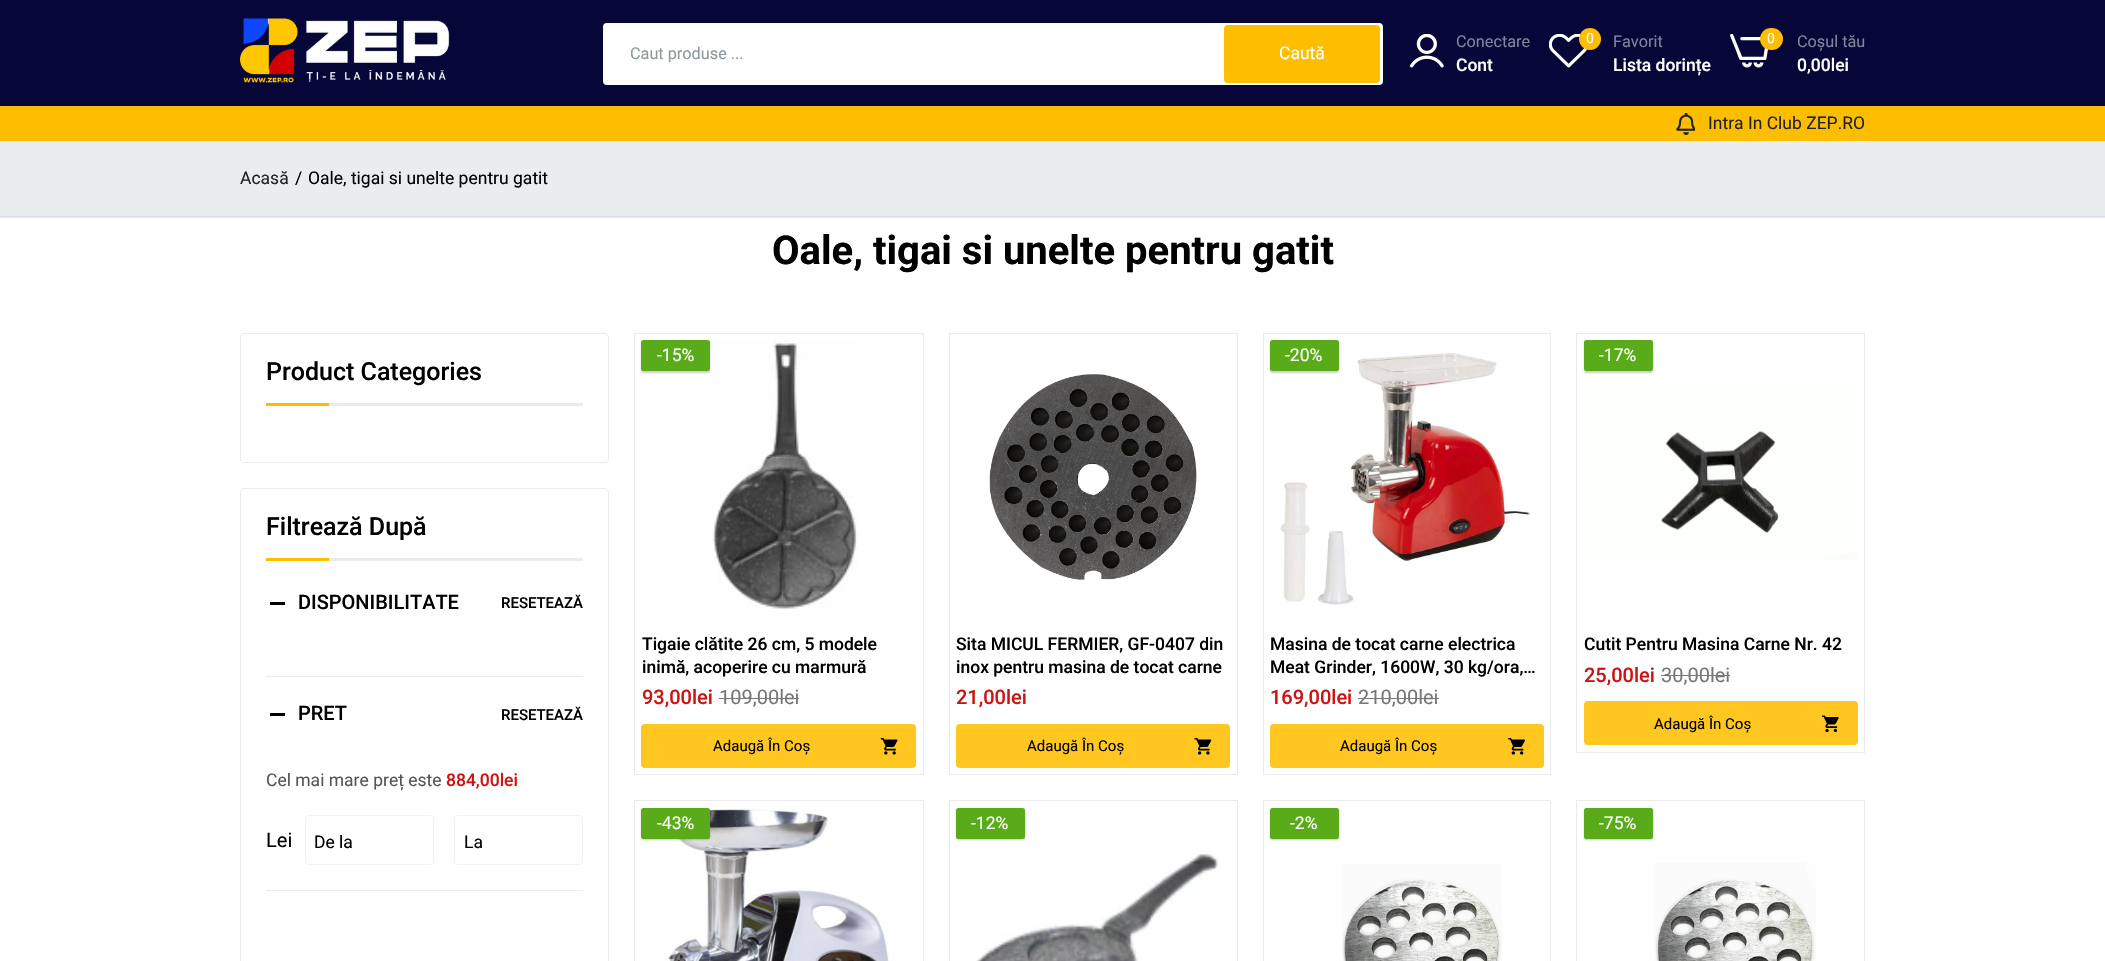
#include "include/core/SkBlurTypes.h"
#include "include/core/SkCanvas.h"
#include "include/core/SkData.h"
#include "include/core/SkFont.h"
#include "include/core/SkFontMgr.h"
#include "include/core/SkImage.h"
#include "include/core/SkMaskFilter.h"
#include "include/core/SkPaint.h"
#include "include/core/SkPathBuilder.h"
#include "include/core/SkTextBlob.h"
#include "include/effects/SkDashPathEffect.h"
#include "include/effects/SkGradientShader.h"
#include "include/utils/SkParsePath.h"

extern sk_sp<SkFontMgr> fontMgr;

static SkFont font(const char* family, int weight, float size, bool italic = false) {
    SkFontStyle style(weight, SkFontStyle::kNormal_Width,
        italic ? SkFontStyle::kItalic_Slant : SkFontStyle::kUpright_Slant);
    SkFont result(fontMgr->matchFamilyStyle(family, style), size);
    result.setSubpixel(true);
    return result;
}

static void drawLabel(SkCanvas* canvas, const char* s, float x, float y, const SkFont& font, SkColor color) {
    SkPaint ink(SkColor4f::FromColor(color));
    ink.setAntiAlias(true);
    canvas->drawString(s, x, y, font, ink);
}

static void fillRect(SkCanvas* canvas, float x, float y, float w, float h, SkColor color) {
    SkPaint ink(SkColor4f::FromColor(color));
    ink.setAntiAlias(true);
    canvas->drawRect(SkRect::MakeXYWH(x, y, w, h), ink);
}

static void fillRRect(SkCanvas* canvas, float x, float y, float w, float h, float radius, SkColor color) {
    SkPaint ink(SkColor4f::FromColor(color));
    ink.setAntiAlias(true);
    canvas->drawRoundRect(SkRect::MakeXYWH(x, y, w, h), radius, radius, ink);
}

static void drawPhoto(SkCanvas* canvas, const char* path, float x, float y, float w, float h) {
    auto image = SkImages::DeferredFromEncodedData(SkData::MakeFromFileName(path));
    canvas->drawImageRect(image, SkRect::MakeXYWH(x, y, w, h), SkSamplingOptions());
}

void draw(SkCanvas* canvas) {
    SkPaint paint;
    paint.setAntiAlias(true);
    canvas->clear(0xFFFFFFFF);
    fillRect(canvas, 0, 0, 2105, 106, 0xFF060738);
    drawPhoto(canvas, "assets/img1.png", 240, 18, 210, 65);
    paint.setColor(0xFFFFFFFF);
    canvas->drawRoundRect(SkRect::MakeXYWH(604.5f, 24.5f, 777, 59), 2.5f, 2.5f, paint);
    paint.setStroke(true);
    paint.setStrokeWidth(3);
    canvas->drawRoundRect(SkRect::MakeXYWH(604.5f, 24.5f, 777, 59), 2.5f, 2.5f, paint);
    SkFont font1 = font("Roboto", 400, 16.25f);
    drawLabel(canvas, "Caut produse ...", 630, 59, font1, 0xFF8D979E);
    fillRRect(canvas, 1224, 25, 156, 58, 4, 0xFFFDBE01);
    SkFont font2 = font("Roboto", 400, 17.5f);
    drawLabel(canvas, "Caută", 1279, 59, font2, 0xFFFFFFFF);
    drawPhoto(canvas, "assets/img2.png", 1410, 34, 34, 34);
    drawLabel(canvas, "Conectare", 1456, 47, font1, 0xFF83839C);
    SkFont font3 = font("Roboto", 500, 17.5f);
    drawLabel(canvas, "Cont", 1456, 71, font3, 0xFFFFFFFF);
    drawPhoto(canvas, "assets/img3.png", 1549, 34, 39, 34);
    paint.setStroke(false);
    paint.setColor(0xFFFDBE01);
    canvas->drawCircle(1590, 39, 11, paint);
    SkFont font4 = font("Roboto", 400, 14);
    drawLabel(canvas, "0", 1586, 43, font4, 0xFFFFFFFF);
    drawLabel(canvas, "Favorit", 1613, 47, font1, 0xFF83839C);
    drawLabel(canvas, "Lista dorințe", 1613, 71, font3, 0xFFFFFFFF);
    drawPhoto(canvas, "assets/img4.png", 1730, 34, 38, 34);
    fillRRect(canvas, 1760, 28, 23, 22, 11, 0xFFFDBE01);
    drawLabel(canvas, "0", 1767, 43, font4, 0xFFFFFFFF);
    drawLabel(canvas, "Coșul tău", 1797, 47, font1, 0xFF83839C);
    drawLabel(canvas, "0,00lei", 1797, 71, font3, 0xFFFFFFFF);
    fillRect(canvas, 0, 106, 2105, 35, 0xFFFDBE01);
    drawPhoto(canvas, "assets/img5.png", 1676, 113, 19, 22);
    drawLabel(canvas, "Intra In Club ZEP.RO", 1708, 129, font2, 0xFF222222);
    fillRect(canvas, 0, 141, 2105, 77, 0xFFEAEDEE);
    fillRect(canvas, 0, 216, 2105, 1, 0xFFD9DFEC);
    drawLabel(canvas, "Acasă", 240, 184, font2, 0xFF222222);
    drawLabel(canvas, "/", 295, 184, font2, 0xFF000000);
    drawLabel(canvas, "Oale, tigai si unelte pentru gatit", 308, 184, font2, 0xFF000000);
    SkFont font5 = font("Roboto", 700, 40);
    drawLabel(canvas, "Oale, tigai si unelte pentru gatit", 772, 264, font5, 0xFF000000);
    paint.setStroke(true);
    paint.setStrokeWidth(1);
    paint.setColor(0xFFEBEBEB);
    canvas->drawRoundRect(SkRect::MakeXYWH(240.5f, 333.5f, 368, 129), 3.5f, 3.5f, paint);
    fillRect(canvas, 329, 403, 254, 3, 0xFFEBEBEB);
    SkFont font6 = font("Roboto", 500, 25);
    drawLabel(canvas, "Product Categories", 266, 380, font6, 0xFF000000);
    fillRect(canvas, 266, 403, 63, 3, 0xFFFDBE01);
    canvas->drawRoundRect(SkRect::MakeXYWH(240.5f, 488.5f, 368, 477), 3.5f, 3.5f, paint);
    fillRect(canvas, 329, 558, 254, 3, 0xFFEBEBEB);
    drawLabel(canvas, "Filtrează După", 266, 535, font6, 0xFF000000);
    fillRect(canvas, 266, 558, 63, 3, 0xFFFDBE01);
    fillRect(canvas, 266, 676, 317, 1, 0xFFEBEBEB);
    fillRect(canvas, 270, 602, 15, 3, 0xFF000000);
    SkFont font7 = font("Roboto", 500, 20);
    drawLabel(canvas, "DISPONIBILITATE", 298, 609, font7, 0xFF000000);
    SkFont font8 = font("Roboto", 500, 15);
    drawLabel(canvas, "RESETEAZĂ", 501, 608, font8, 0xFF000000);
    fillRect(canvas, 266, 890, 317, 1, 0xFFEBEBEB);
    fillRect(canvas, 270, 713, 15, 3, 0xFF000000);
    drawLabel(canvas, "PRET", 298, 720, font7, 0xFF000000);
    drawLabel(canvas, "RESETEAZĂ", 501, 720, font8, 0xFF000000);
    drawLabel(canvas, "Cel mai mare preț este", 266, 786, font2, 0xFF555555);
    drawLabel(canvas, "884,00lei", 446, 786, font3, 0xFFCC1414);
    SkFont font9 = font("Roboto", 400, 20);
    drawLabel(canvas, "Lei", 266, 847, font9, 0xFF000000);
    paint.setColor(0xFFF2F2F6);
    canvas->drawRoundRect(SkRect::MakeXYWH(305.5f, 815.5f, 128, 49), 3.5f, 3.5f, paint);
    drawLabel(canvas, "De la", 314, 848, font2, 0xFF000000);
    canvas->drawRoundRect(SkRect::MakeXYWH(454.5f, 815.5f, 128, 49), 3.5f, 3.5f, paint);
    drawLabel(canvas, "La", 464, 848, font2, 0xFF000000);
    paint.setColor(0xFFEBEBEB);
    canvas->drawRect(SkRect::MakeXYWH(634.5f, 333.5f, 289, 441), paint);
    drawPhoto(canvas, "assets/img6.png", 712, 340, 147, 269);
    paint.setStroke(false);
    paint.setColor(0x33000000);
    paint.setMaskFilter(SkMaskFilter::MakeBlur(kNormal_SkBlurStyle, 1));
    canvas->drawRoundRect(SkRect::MakeXYWH(641, 341, 69, 32), 2.5f, 2.5f, paint);
    paint.setMaskFilter(nullptr);
    fillRRect(canvas, 641, 340, 69, 31, 2.5f, 0xFF5AAB19);
    drawLabel(canvas, "-15%", 657, 361, font2, 0xFFFFFFFF);
    drawLabel(canvas, "Tigaie clătite 26 cm, 5 modele", 642, 650, font3, 0xFF000000);
    drawLabel(canvas, "inimă, acoperire cu marmură", 642, 673, font3, 0xFF000000);
    drawLabel(canvas, "93,00lei", 642, 704, font7, 0xFFCC1414);
    drawLabel(canvas, "109,00lei", 719, 704, font9, 0xFF777777);
    fillRect(canvas, 719, 698, 80, 1, 0xFF777777);
    fillRRect(canvas, 641, 724, 275, 44, 4, 0xFFFFC71F);
    SkFont font10 = font("Roboto", 400, 15);
    drawLabel(canvas, "Adaugă În Coș", 713, 751, font10, 0xFF000000);
    drawPhoto(canvas, "assets/img7.png", 880, 738, 18, 17);
    paint.setStroke(true);
    paint.setColor(0xFFEBEBEB);
    canvas->drawRect(SkRect::MakeXYWH(949.5f, 333.5f, 288, 441), paint);
    drawPhoto(canvas, "assets/img8.png", 989, 374, 208, 206);
    drawLabel(canvas, "Sita MICUL FERMIER, GF-0407 din", 956, 650, font3, 0xFF000000);
    drawLabel(canvas, "inox pentru masina de tocat carne", 956, 673, font3, 0xFF000000);
    drawLabel(canvas, "21,00lei", 956, 704, font7, 0xFFCC1414);
    fillRRect(canvas, 956, 724, 274, 44, 4, 0xFFFFC71F);
    drawLabel(canvas, "Adaugă În Coș", 1027, 751, font10, 0xFF000000);
    drawPhoto(canvas, "assets/img9.png", 1194, 738, 18, 17);
    canvas->drawRect(SkRect::MakeXYWH(1263.5f, 333.5f, 287, 441), paint);
    drawPhoto(canvas, "assets/img10.png", 1280, 353, 250, 252);
    paint.setStroke(false);
    paint.setColor(0x33000000);
    paint.setMaskFilter(SkMaskFilter::MakeBlur(kNormal_SkBlurStyle, 1));
    canvas->drawRoundRect(SkRect::MakeXYWH(1270, 341, 69, 32), 2.5f, 2.5f, paint);
    paint.setMaskFilter(nullptr);
    fillRRect(canvas, 1270, 340, 69, 31, 2.5f, 0xFF5AAB19);
    drawLabel(canvas, "-20%", 1285, 361, font2, 0xFFFFFFFF);
    drawLabel(canvas, "Masina de tocat carne electrica", 1270, 650, font3, 0xFF000000);
    drawLabel(canvas, "Meat Grinder, 1600W, 30 kg/ora,…", 1270, 673, font3, 0xFF000000);
    drawLabel(canvas, "169,00lei", 1270, 704, font7, 0xFFCC1414);
    drawLabel(canvas, "210,00lei", 1358, 704, font9, 0xFF777777);
    fillRect(canvas, 1358, 698, 81, 1, 0xFF777777);
    fillRRect(canvas, 1270, 724, 274, 44, 4, 0xFFFFC71F);
    drawLabel(canvas, "Adaugă În Coș", 1340, 751, font10, 0xFF000000);
    drawPhoto(canvas, "assets/img11.png", 1508, 738, 17, 17);
    paint.setStroke(true);
    paint.setColor(0xFFEBEBEB);
    canvas->drawRect(SkRect::MakeXYWH(1576.5f, 333.5f, 288, 419), paint);
    paint.setStroke(false);
    paint.setColor(0x33000000);
    paint.setMaskFilter(SkMaskFilter::MakeBlur(kNormal_SkBlurStyle, 1));
    canvas->drawRoundRect(SkRect::MakeXYWH(1584, 341, 69, 32), 2.5f, 2.5f, paint);
    paint.setMaskFilter(nullptr);
    fillRRect(canvas, 1584, 340, 69, 31, 2.5f, 0xFF5AAB19);
    drawLabel(canvas, "-17%", 1599, 361, font2, 0xFFFFFFFF);
    drawPhoto(canvas, "assets/img12.png", 1584, 387, 273, 181);
    drawLabel(canvas, "Cutit Pentru Masina Carne Nr. 42", 1584, 650, font3, 0xFF000000);
    drawLabel(canvas, "25,00lei", 1584, 682, font7, 0xFFCC1414);
    drawLabel(canvas, "30,00lei", 1661, 682, font9, 0xFF777777);
    fillRect(canvas, 1661, 675, 69, 1, 0xFF777777);
    fillRRect(canvas, 1584, 701, 274, 44, 4, 0xFFFFC71F);
    drawLabel(canvas, "Adaugă În Coș", 1654, 729, font10, 0xFF000000);
    drawPhoto(canvas, "assets/img13.png", 1822, 715, 17, 17);
    paint.setStroke(true);
    paint.setColor(0xFFEBEBEB);
    canvas->drawRect(SkRect::MakeXYWH(634.5f, 800.5f, 289, 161), paint);
    drawPhoto(canvas, "assets/img14.png", 668, 808, 222, 153);
    paint.setStroke(false);
    paint.setColor(0x33000000);
    paint.setMaskFilter(SkMaskFilter::MakeBlur(kNormal_SkBlurStyle, 1));
    canvas->drawRoundRect(SkRect::MakeXYWH(641, 809, 69, 31), 2.5f, 2.5f, paint);
    paint.setMaskFilter(nullptr);
    fillRRect(canvas, 641, 808, 69, 31, 2.5f, 0xFF5AAB19);
    drawLabel(canvas, "-43%", 657, 829, font2, 0xFFFFFFFF);
    paint.setStroke(true);
    paint.setColor(0xFFEBEBEB);
    canvas->drawRect(SkRect::MakeXYWH(949.5f, 800.5f, 288, 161), paint);
    paint.setStroke(false);
    paint.setColor(0x33000000);
    paint.setMaskFilter(SkMaskFilter::MakeBlur(kNormal_SkBlurStyle, 1));
    canvas->drawRoundRect(SkRect::MakeXYWH(956, 809, 69, 31), 2.5f, 2.5f, paint);
    paint.setMaskFilter(nullptr);
    fillRRect(canvas, 956, 808, 69, 31, 2.5f, 0xFF5AAB19);
    drawLabel(canvas, "-12%", 971, 829, font2, 0xFFFFFFFF);
    drawPhoto(canvas, "assets/img15.png", 976, 853, 243, 108);
    paint.setStroke(true);
    paint.setColor(0xFFEBEBEB);
    canvas->drawRect(SkRect::MakeXYWH(1263.5f, 800.5f, 287, 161), paint);
    paint.setStroke(false);
    paint.setColor(0x33000000);
    paint.setMaskFilter(SkMaskFilter::MakeBlur(kNormal_SkBlurStyle, 1));
    canvas->drawRoundRect(SkRect::MakeXYWH(1270, 809, 69, 31), 2.5f, 2.5f, paint);
    paint.setMaskFilter(nullptr);
    fillRRect(canvas, 1270, 808, 69, 31, 2.5f, 0xFF5AAB19);
    drawLabel(canvas, "-2%", 1290, 829, font2, 0xFFFFFFFF);
    drawPhoto(canvas, "assets/img16.png", 1342, 864, 160, 97);
    paint.setStroke(true);
    paint.setColor(0xFFEBEBEB);
    canvas->drawRect(SkRect::MakeXYWH(1576.5f, 800.5f, 288, 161), paint);
    paint.setStroke(false);
    paint.setColor(0x33000000);
    paint.setMaskFilter(SkMaskFilter::MakeBlur(kNormal_SkBlurStyle, 1));
    canvas->drawRoundRect(SkRect::MakeXYWH(1584, 809, 69, 31), 2.5f, 2.5f, paint);
    paint.setMaskFilter(nullptr);
    fillRRect(canvas, 1584, 808, 69, 31, 2.5f, 0xFF5AAB19);
    drawLabel(canvas, "-75%", 1599, 829, font2, 0xFFFFFFFF);
    drawPhoto(canvas, "assets/img17.png", 1654, 863, 162, 98);
}
